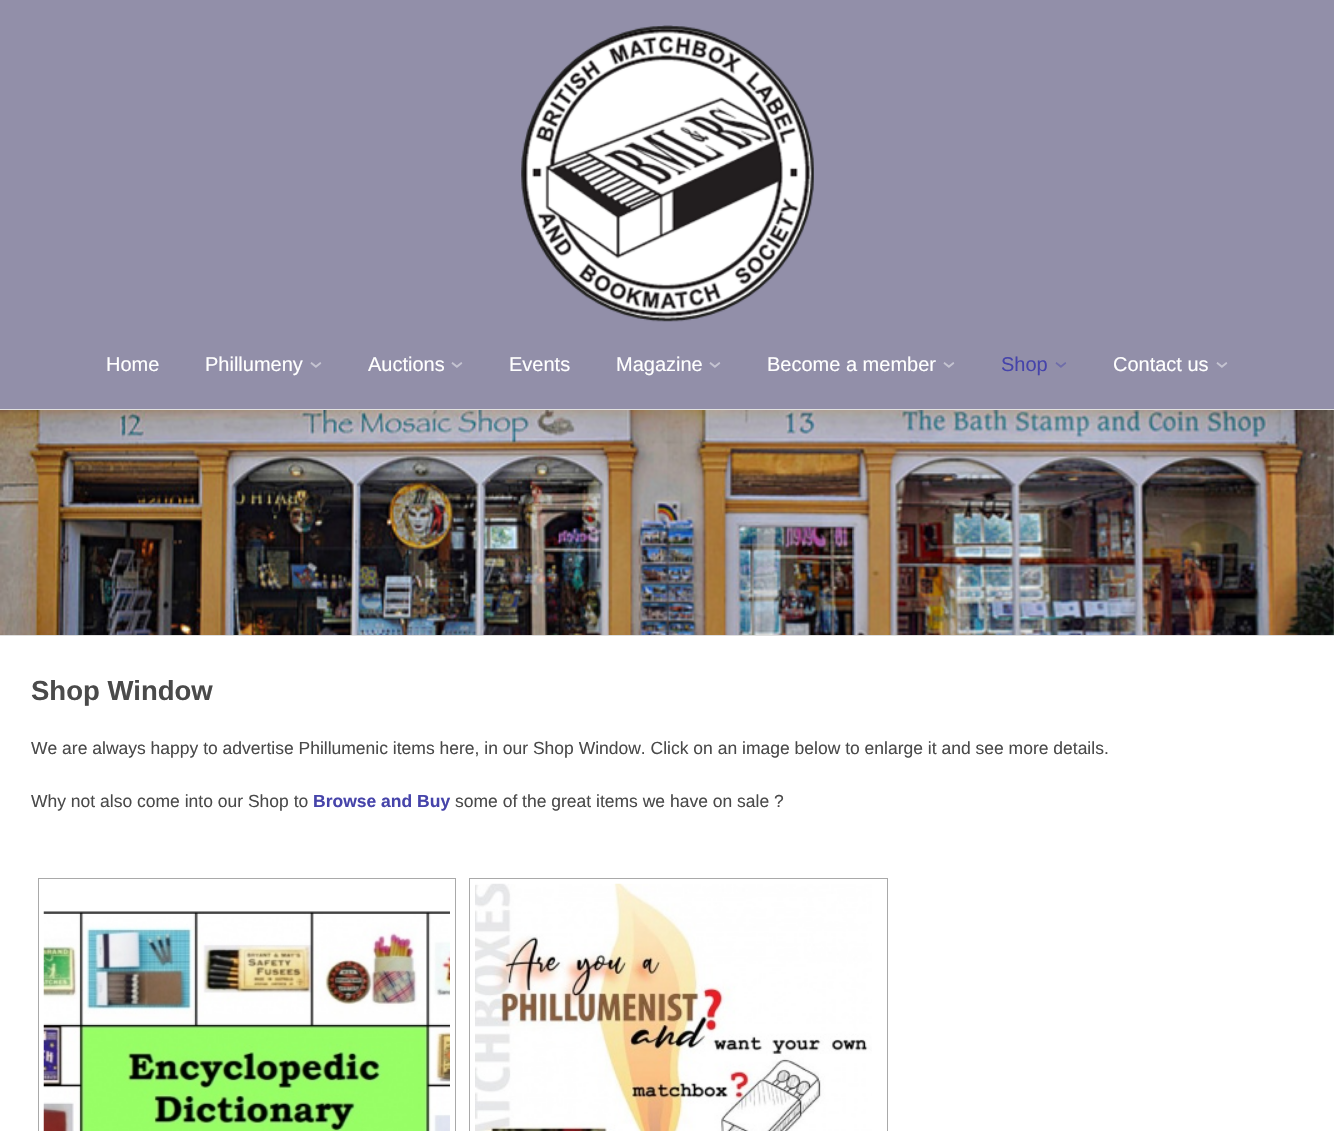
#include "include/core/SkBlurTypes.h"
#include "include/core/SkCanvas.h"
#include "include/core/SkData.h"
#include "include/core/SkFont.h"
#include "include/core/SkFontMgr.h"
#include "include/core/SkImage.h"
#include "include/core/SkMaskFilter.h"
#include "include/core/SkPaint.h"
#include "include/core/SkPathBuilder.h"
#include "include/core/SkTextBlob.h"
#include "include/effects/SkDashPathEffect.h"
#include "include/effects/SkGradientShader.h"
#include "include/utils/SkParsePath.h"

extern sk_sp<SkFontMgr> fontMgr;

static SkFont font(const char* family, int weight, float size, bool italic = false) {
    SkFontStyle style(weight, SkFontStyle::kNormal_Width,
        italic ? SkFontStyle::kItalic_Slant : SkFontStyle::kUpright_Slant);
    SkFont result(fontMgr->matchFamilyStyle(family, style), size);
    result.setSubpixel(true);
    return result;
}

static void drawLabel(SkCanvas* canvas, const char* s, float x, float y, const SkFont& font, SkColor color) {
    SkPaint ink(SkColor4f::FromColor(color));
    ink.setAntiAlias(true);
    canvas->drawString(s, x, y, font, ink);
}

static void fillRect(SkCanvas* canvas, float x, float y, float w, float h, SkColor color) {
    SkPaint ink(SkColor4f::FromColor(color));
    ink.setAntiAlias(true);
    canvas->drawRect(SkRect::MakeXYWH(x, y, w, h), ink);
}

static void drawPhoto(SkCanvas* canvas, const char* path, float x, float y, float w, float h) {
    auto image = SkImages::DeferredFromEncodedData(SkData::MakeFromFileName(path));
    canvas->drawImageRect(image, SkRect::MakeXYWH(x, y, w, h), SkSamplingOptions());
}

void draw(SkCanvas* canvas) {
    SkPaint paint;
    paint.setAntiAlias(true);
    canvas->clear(0xFFFFFFFF);
    fillRect(canvas, 0, 0, 1334, 409, 0xFF928FA9);
    fillRect(canvas, 0, 409, 1334, 1, 0xFFE0E0E0);
    drawPhoto(canvas, "assets/img1.png", 521, 25, 293, 297);
    SkFont font1 = font("Liberation Sans", 400, 20);
    drawLabel(canvas, "Home", 106, 371, font1, 0xFFFFFFFF);
    drawLabel(canvas, "Phillumeny", 205, 371, font1, 0xFFFFFFFF);
    SkFont font2 = font("Open Sans", 400, 26);
    canvas->save();
    canvas->rotate(90, 309, 361);
    drawLabel(canvas, "›", 309, 361, font2, 0xFFC4C3D1);
    canvas->restore();
    drawLabel(canvas, "Auctions", 368, 371, font1, 0xFFFFFFFF);
    canvas->save();
    canvas->rotate(90, 450, 361);
    drawLabel(canvas, "›", 450, 361, font2, 0xFFC4C3D1);
    canvas->restore();
    drawLabel(canvas, "Events", 509, 371, font1, 0xFFFFFFFF);
    drawLabel(canvas, "Magazine", 616, 371, font1, 0xFFFFFFFF);
    canvas->save();
    canvas->rotate(90, 708, 361);
    drawLabel(canvas, "›", 708, 361, font2, 0xFFC4C3D1);
    canvas->restore();
    drawLabel(canvas, "Become a member", 767, 371, font1, 0xFFFFFFFF);
    canvas->save();
    canvas->rotate(90, 942, 361);
    drawLabel(canvas, "›", 942, 361, font2, 0xFFC4C3D1);
    canvas->restore();
    drawLabel(canvas, "Shop", 1001, 371, font1, 0xFF4644AA);
    canvas->save();
    canvas->rotate(90, 1054, 361);
    drawLabel(canvas, "›", 1054, 361, font2, 0xFF6F6DA9);
    canvas->restore();
    drawLabel(canvas, "Contact us", 1113, 371, font1, 0xFFFFFFFF);
    canvas->save();
    canvas->rotate(90, 1215, 361);
    drawLabel(canvas, "›", 1215, 361, font2, 0xFFC4C3D1);
    canvas->restore();
    fillRect(canvas, 0, 635, 1334, 1, 0xFFE0E0E0);
    drawPhoto(canvas, "assets/img2.png", 0, 410, 1334, 225);
    SkFont font3 = font("Liberation Sans", 700, 27.5f);
    drawLabel(canvas, "Shop Window", 31, 700, font3, 0xFF4A4A4A);
    SkFont font4 = font("Liberation Sans", 400, 17.5f);
    drawLabel(canvas, "We are always happy to advertise Phillumenic items here, in our Shop Window. Click on an image below to enlarge it and see more details.", 31, 754, font4, 0xFF4A4A4A);
    drawLabel(canvas, "Why not also come into our Shop to", 31, 807, font4, 0xFF4A4A4A);
    SkFont font5 = font("Liberation Sans", 700, 17.5f);
    drawLabel(canvas, "Browse and Buy", 313, 807, font5, 0xFF4644AA);
    drawLabel(canvas, "some of the great items we have on sale ?", 455, 807, font4, 0xFF4A4A4A);
    paint.setStroke(true);
    paint.setStrokeWidth(1);
    paint.setColor(0xFFA9A9A9);
    canvas->drawRect(SkRect::MakeXYWH(38.5f, 878.5f, 417, 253), paint);
    drawPhoto(canvas, "assets/img3.png", 43, 911, 407, 220);
    canvas->drawRect(SkRect::MakeXYWH(469.5f, 878.5f, 418, 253), paint);
    drawPhoto(canvas, "assets/img4.png", 475, 883, 397, 248);
}
